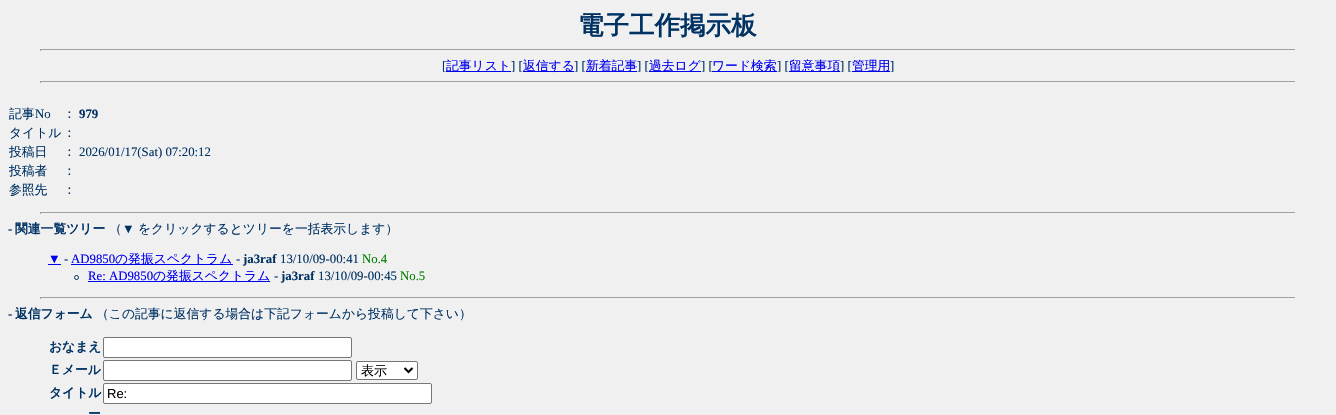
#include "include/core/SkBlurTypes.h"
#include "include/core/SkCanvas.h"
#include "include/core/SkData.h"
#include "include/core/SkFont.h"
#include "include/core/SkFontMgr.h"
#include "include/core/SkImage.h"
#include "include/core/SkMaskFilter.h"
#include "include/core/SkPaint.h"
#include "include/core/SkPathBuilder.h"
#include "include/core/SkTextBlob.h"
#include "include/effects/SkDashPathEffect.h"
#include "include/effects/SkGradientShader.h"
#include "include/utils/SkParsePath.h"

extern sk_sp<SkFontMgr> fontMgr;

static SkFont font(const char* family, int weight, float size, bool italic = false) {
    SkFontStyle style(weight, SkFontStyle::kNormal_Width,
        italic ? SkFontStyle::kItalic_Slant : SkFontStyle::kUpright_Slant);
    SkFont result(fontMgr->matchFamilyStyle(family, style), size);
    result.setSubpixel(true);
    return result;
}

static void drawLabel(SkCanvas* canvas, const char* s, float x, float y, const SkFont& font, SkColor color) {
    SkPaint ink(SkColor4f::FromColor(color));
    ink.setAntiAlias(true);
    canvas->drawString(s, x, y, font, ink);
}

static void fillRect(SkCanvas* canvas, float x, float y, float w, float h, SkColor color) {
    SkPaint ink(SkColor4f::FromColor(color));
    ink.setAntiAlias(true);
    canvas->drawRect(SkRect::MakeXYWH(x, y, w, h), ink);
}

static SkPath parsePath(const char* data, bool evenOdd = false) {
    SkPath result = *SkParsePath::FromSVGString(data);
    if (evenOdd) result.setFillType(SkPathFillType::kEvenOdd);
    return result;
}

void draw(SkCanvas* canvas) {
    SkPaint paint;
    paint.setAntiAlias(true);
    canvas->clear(0xFFF0F0F0);
    SkFont font1 = font("WenQuanYi Zen Hei", 700, 25.5f);
    drawLabel(canvas, "電子工作掲示板", 578, 34, font1, 0xFF003264);
    fillRect(canvas, 40, 49, 1256, 1, 0xFF9F9F9F);
    fillRect(canvas, 1295, 49, 1, 2, 0xFFEEEEEE);
    fillRect(canvas, 40, 49, 1, 2, 0xFF9F9F9F);
    SkFont font2 = font("Liberation Serif", 400, 12.8f);
    drawLabel(canvas, "[", 442, 70, font2, 0xFF003264);
    fillRect(canvas, 446, 71, 65, 1, 0xFF0000EE);
    SkFont font3 = font("WenQuanYi Zen Hei", 500, 12.8f);
    drawLabel(canvas, "記事リスト", 446, 70, font3, 0xFF0000EE);
    drawLabel(canvas, "] [", 511, 70, font2, 0xFF003264);
    fillRect(canvas, 523, 71, 51, 1, 0xFF0000EE);
    drawLabel(canvas, "返信する", 523, 70, font3, 0xFF0000EE);
    drawLabel(canvas, "] [", 574, 70, font2, 0xFF003264);
    fillRect(canvas, 586, 71, 51, 1, 0xFF0000EE);
    drawLabel(canvas, "新着記事", 586, 70, font3, 0xFF0000EE);
    drawLabel(canvas, "] [", 637, 70, font2, 0xFF003264);
    fillRect(canvas, 649, 71, 52, 1, 0xFF0000EE);
    drawLabel(canvas, "過去ログ", 649, 70, font3, 0xFF0000EE);
    drawLabel(canvas, "] [", 701, 70, font2, 0xFF003264);
    fillRect(canvas, 712, 71, 65, 1, 0xFF0000EE);
    drawLabel(canvas, "ワード検索", 712, 70, font3, 0xFF0000EE);
    drawLabel(canvas, "] [", 777, 70, font2, 0xFF003264);
    fillRect(canvas, 789, 71, 51, 1, 0xFF0000EE);
    drawLabel(canvas, "留意事項", 789, 70, font3, 0xFF0000EE);
    drawLabel(canvas, "] [", 840, 70, font2, 0xFF003264);
    fillRect(canvas, 852, 71, 38, 1, 0xFF0000EE);
    drawLabel(canvas, "管理用", 852, 70, font3, 0xFF0000EE);
    drawLabel(canvas, "]", 890, 70, font2, 0xFF003264);
    fillRect(canvas, 40, 81, 1256, 1, 0xFF9F9F9F);
    fillRect(canvas, 1295, 81, 1, 2, 0xFFEEEEEE);
    fillRect(canvas, 40, 81, 1, 2, 0xFF9F9F9F);
    drawLabel(canvas, "記事", 9, 118, font3, 0xFF003264);
    drawLabel(canvas, "No", 35, 118, font2, 0xFF003264);
    drawLabel(canvas, "：", 63, 118, font3, 0xFF003264);
    SkFont font4 = font("Liberation Serif", 700, 12.8f);
    drawLabel(canvas, "979", 79, 118, font4, 0xFF003264);
    drawLabel(canvas, "タイトル", 9, 137, font3, 0xFF003264);
    drawLabel(canvas, "：", 63, 137, font3, 0xFF003264);
    drawLabel(canvas, "投稿日", 9, 156, font3, 0xFF003264);
    drawLabel(canvas, "：", 63, 156, font3, 0xFF003264);
    drawLabel(canvas, "2026/01/17(Sat) 07:20:12", 79, 156, font2, 0xFF003264);
    drawLabel(canvas, "投稿者", 9, 175, font3, 0xFF003264);
    drawLabel(canvas, "：", 63, 175, font3, 0xFF003264);
    drawLabel(canvas, "参照先", 9, 194, font3, 0xFF003264);
    drawLabel(canvas, "：", 63, 194, font3, 0xFF003264);
    fillRect(canvas, 40, 212, 1256, 1, 0xFF9F9F9F);
    fillRect(canvas, 1295, 212, 1, 2, 0xFFEEEEEE);
    fillRect(canvas, 40, 212, 1, 2, 0xFF9F9F9F);
    drawLabel(canvas, "-", 8, 233, font4, 0xFF003264);
    SkFont font5 = font("WenQuanYi Zen Hei", 700, 12.8f);
    drawLabel(canvas, "関連一覧ツリー", 15, 233, font5, 0xFF003264);
    drawLabel(canvas, "（", 109, 233, font3, 0xFF003264);
    drawLabel(canvas, "▼", 122, 233, font2, 0xFF003264);
    drawLabel(canvas, "をクリックするとツリーを一括表示します）", 138, 233, font3, 0xFF003264);
    drawLabel(canvas, "▼", 48, 263, font2, 0xFF0000EE);
    fillRect(canvas, 48, 264, 13, 1, 0xFF0000EE);
    drawLabel(canvas, "-", 64, 263, font2, 0xFF003264);
    drawLabel(canvas, "AD9850", 71, 263, font2, 0xFF0000EE);
    fillRect(canvas, 71, 264, 162, 1, 0xFF0000EE);
    drawLabel(canvas, "の発振スペクトラム", 115, 263, font3, 0xFF0000EE);
    drawLabel(canvas, "-", 236, 263, font2, 0xFF003264);
    drawLabel(canvas, "ja3raf", 243, 263, font4, 0xFF003264);
    drawLabel(canvas, "13/10/09-00:41", 280, 263, font2, 0xFF003264);
    drawLabel(canvas, "No.4", 362, 263, font2, 0xFF008000);
    paint.setStroke(true);
    paint.setStrokeWidth(1);
    paint.setColor(0xFF003264);
    canvas->drawCircle(76.5f, 277.5f, 2, paint);
    drawLabel(canvas, "Re: AD9850", 88, 280, font2, 0xFF0000EE);
    fillRect(canvas, 88, 281, 182, 1, 0xFF0000EE);
    drawLabel(canvas, "の発振スペクトラム", 153, 280, font3, 0xFF0000EE);
    drawLabel(canvas, "-", 274, 280, font2, 0xFF003264);
    drawLabel(canvas, "ja3raf", 281, 280, font4, 0xFF003264);
    drawLabel(canvas, "13/10/09-00:45", 318, 280, font2, 0xFF003264);
    drawLabel(canvas, "No.5", 400, 280, font2, 0xFF008000);
    fillRect(canvas, 40, 297, 1256, 1, 0xFF9F9F9F);
    fillRect(canvas, 1295, 297, 1, 2, 0xFFEEEEEE);
    fillRect(canvas, 40, 297, 1, 2, 0xFF9F9F9F);
    drawLabel(canvas, "-", 8, 318, font4, 0xFF003264);
    drawLabel(canvas, "返信フォーム", 15, 318, font5, 0xFF003264);
    drawLabel(canvas, "（この記事に返信する場合は下記フォームから投稿して下さい）", 96, 318, font3, 0xFF003264);
    drawLabel(canvas, "おなまえ", 49, 351, font5, 0xFF003264);
    paint.setStroke(false);
    paint.setColor(0xFFFFFFFF);
    canvas->drawRoundRect(SkRect::MakeXYWH(103.5f, 337.5f, 248, 20), 1.5f, 1.5f, paint);
    paint.setStroke(true);
    paint.setColor(0xFF767676);
    canvas->drawRoundRect(SkRect::MakeXYWH(103.5f, 337.5f, 248, 20), 1.5f, 1.5f, paint);
    drawLabel(canvas, "Ｅメール", 49, 374, font5, 0xFF003264);
    paint.setStroke(false);
    paint.setColor(0xFFFFFFFF);
    canvas->drawRoundRect(SkRect::MakeXYWH(103.5f, 360.5f, 248, 20), 1.5f, 1.5f, paint);
    paint.setStroke(true);
    paint.setColor(0xFF767676);
    canvas->drawRoundRect(SkRect::MakeXYWH(103.5f, 360.5f, 248, 20), 1.5f, 1.5f, paint);
    paint.setStroke(false);
    paint.setColor(0xFFFFFFFF);
    canvas->drawRoundRect(SkRect::MakeXYWH(356.5f, 361.5f, 61, 18), 1.5f, 1.5f, paint);
    paint.setStroke(true);
    paint.setColor(0xFF767676);
    canvas->drawRoundRect(SkRect::MakeXYWH(356.5f, 361.5f, 61, 18), 1.5f, 1.5f, paint);
    paint.setStrokeWidth(2);
    paint.setColor(0xFF000000);
    canvas->drawPath(parsePath("M404.5 368L408.5 372L412.5 368"), paint);
    SkFont font6 = font("WenQuanYi Zen Hei", 500, 13);
    drawLabel(canvas, "表示", 361, 375, font6, 0xFF000000);
    drawLabel(canvas, "タイトル", 49, 397, font5, 0xFF003264);
    paint.setStroke(false);
    paint.setColor(0xFFFFFFFF);
    canvas->drawRoundRect(SkRect::MakeXYWH(103.5f, 383.5f, 328, 20), 1.5f, 1.5f, paint);
    paint.setStroke(true);
    paint.setStrokeWidth(1);
    paint.setColor(0xFF767676);
    canvas->drawRoundRect(SkRect::MakeXYWH(103.5f, 383.5f, 328, 20), 1.5f, 1.5f, paint);
    SkFont font7 = font("Liberation Sans", 400, 13);
    drawLabel(canvas, "Re:", 107, 398, font7, 0xFF000000);
    drawLabel(canvas, "ー", 88, 418, font5, 0xFF003264);
}
